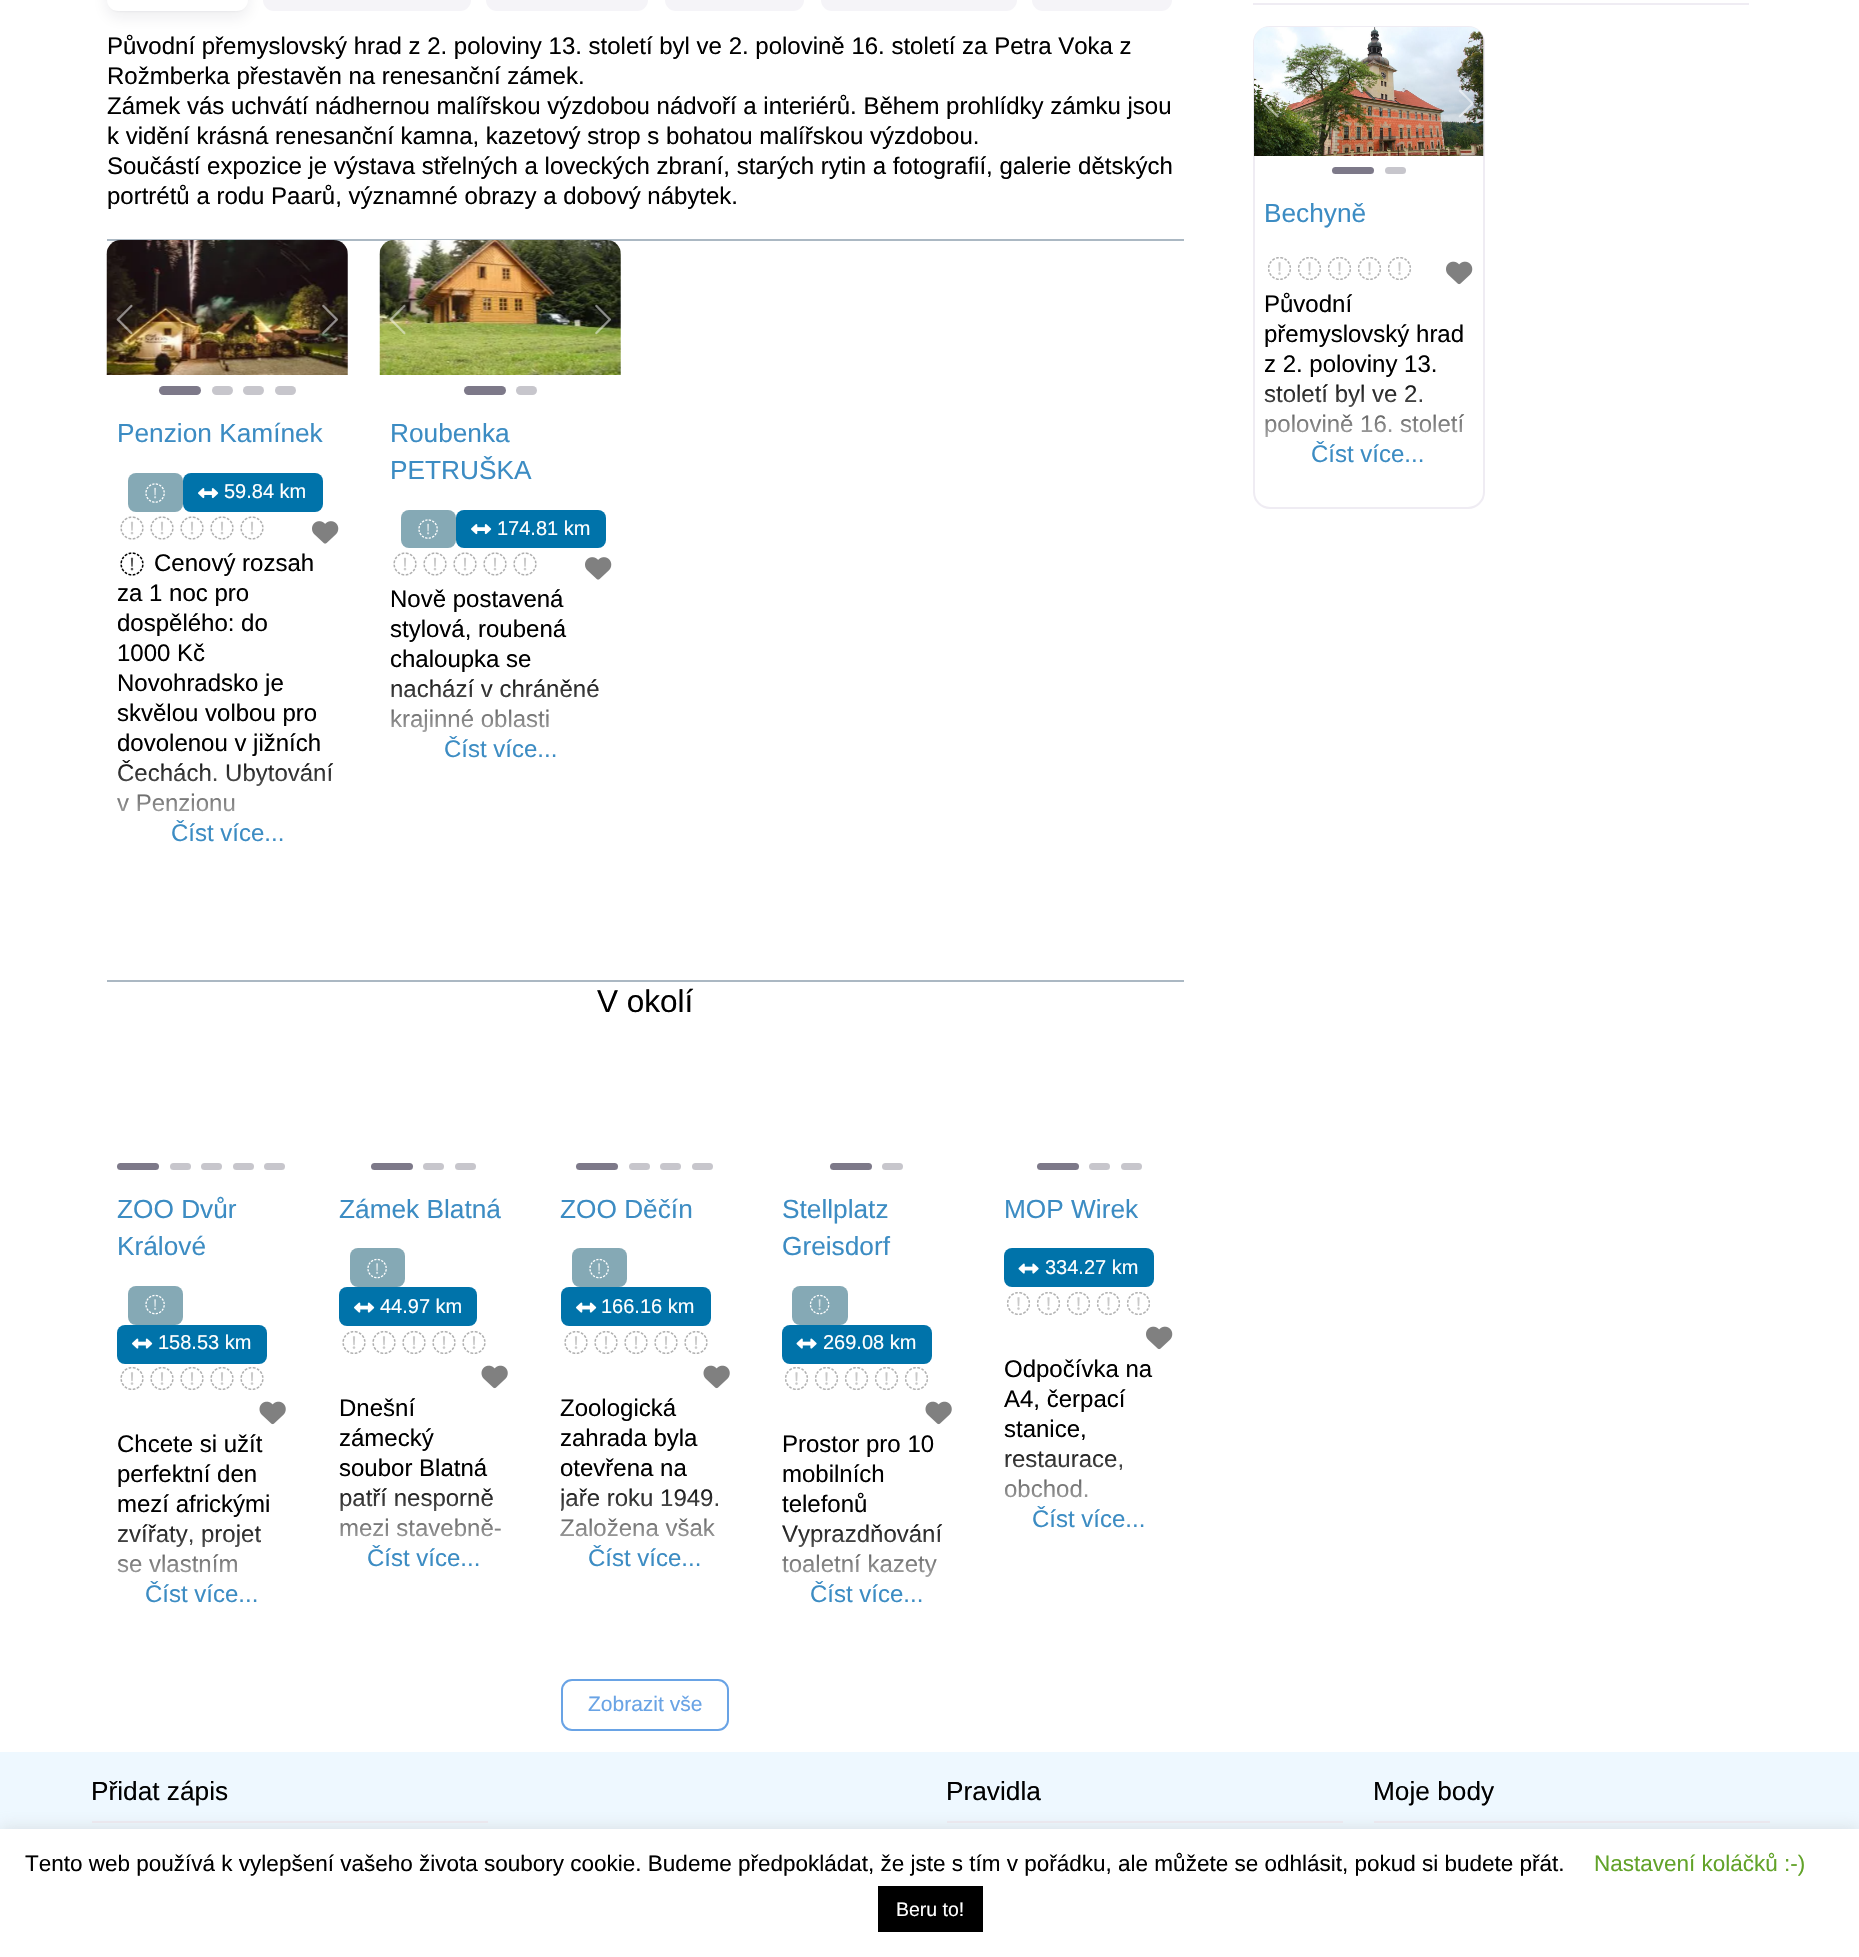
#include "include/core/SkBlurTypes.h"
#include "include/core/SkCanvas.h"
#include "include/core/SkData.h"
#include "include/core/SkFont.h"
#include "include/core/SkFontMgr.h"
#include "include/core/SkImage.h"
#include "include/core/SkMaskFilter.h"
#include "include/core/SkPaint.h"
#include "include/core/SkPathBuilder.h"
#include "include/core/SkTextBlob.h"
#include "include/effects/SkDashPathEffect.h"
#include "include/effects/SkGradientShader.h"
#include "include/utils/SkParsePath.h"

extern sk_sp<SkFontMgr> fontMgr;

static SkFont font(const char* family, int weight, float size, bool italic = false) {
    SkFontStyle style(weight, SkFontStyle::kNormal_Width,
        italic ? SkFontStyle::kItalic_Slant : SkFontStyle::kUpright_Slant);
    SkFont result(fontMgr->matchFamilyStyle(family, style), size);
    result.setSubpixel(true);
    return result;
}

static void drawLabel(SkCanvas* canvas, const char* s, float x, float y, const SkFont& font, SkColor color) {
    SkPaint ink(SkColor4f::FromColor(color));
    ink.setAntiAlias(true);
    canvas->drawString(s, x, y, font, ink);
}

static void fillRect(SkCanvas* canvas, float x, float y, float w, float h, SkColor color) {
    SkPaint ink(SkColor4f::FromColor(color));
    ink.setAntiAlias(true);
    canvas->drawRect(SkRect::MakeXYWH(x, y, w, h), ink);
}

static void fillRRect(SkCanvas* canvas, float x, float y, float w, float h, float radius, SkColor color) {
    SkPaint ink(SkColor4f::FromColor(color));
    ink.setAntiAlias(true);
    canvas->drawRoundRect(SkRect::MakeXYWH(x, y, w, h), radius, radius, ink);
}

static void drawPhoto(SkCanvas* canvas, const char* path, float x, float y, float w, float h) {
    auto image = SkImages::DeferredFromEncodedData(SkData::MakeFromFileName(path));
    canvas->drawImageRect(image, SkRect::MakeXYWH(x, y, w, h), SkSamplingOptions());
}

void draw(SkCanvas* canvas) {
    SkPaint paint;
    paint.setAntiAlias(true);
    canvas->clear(0xFFFFFFFF);
    paint.setColor(0x141F1B2D);
    paint.setMaskFilter(SkMaskFilter::MakeBlur(kNormal_SkBlurStyle, 8));
    canvas->drawRoundRect(SkRect::MakeXYWH(107, -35, 141, 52), 11, 11, paint);
    paint.setMaskFilter(nullptr);
    paint.setMaskFilter(SkMaskFilter::MakeBlur(kNormal_SkBlurStyle, 1.5f));
    canvas->drawRoundRect(SkRect::MakeXYWH(110, -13, 135, 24), 8, 8, paint);
    paint.setMaskFilter(nullptr);
    fillRRect(canvas, 107, -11, 141, 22, 11, 0xFFFFFFFF);
    fillRRect(canvas, 263, -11, 208, 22, 11, 0xFFF5F4F8);
    fillRRect(canvas, 486, -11, 162, 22, 11, 0xFFF5F4F8);
    fillRRect(canvas, 665, -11, 139, 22, 11, 0xFFF5F4F8);
    fillRRect(canvas, 821, -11, 196, 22, 11, 0xFFF5F4F8);
    fillRRect(canvas, 1032, -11, 140, 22, 11, 0xFFF5F4F8);
    SkFont font1 = font("Liberation Sans", 400, 24);
    drawLabel(canvas, "Původní přemyslovský hrad z 2. poloviny 13. století byl ve 2. polovině 16. století za Petra Voka z", 107, 54, font1, 0xFF000000);
    drawLabel(canvas, "Rožmberka přestavěn na renesanční zámek.", 107, 84, font1, 0xFF000000);
    drawLabel(canvas, "Zámek vás uchvátí nádhernou malířskou výzdobou nádvoří a interiérů. Během prohlídky zámku jsou", 107, 114, font1, 0xFF000000);
    drawLabel(canvas, "k vidění krásná renesanční kamna, kazetový strop s bohatou malířskou výzdobou.", 107, 144, font1, 0xFF000000);
    drawLabel(canvas, "Součástí expozice je výstava střelných a loveckých zbraní, starých rytin a fotografií, galerie dětských", 107, 174, font1, 0xFF000000);
    drawLabel(canvas, "portrétů a rodu Paarů, významné obrazy a dobový nábytek.", 107, 204, font1, 0xFF000000);
    fillRect(canvas, 107, 239, 1077, 2, 0xFFABB8C3);
    fillRRect(canvas, 107, 240, 241, 645, 17, 0xFFFFFFFF);
    drawPhoto(canvas, "assets/img1.png", 106, 240, 242, 135);
    drawPhoto(canvas, "assets/img2.png", 116, 304, 17, 31);
    drawPhoto(canvas, "assets/img3.png", 322, 304, 16, 31);
    fillRRect(canvas, 159, 386, 42, 9, 4.5f, 0xFF7D7989);
    fillRRect(canvas, 212, 386, 21, 9, 4.5f, 0xFFC7C6CC);
    fillRRect(canvas, 243, 386, 21, 9, 4.5f, 0xFFC7C6CC);
    fillRRect(canvas, 275, 386, 21, 9, 4.5f, 0xFFC7C6CC);
    SkFont font2 = font("Liberation Sans", 400, 26.25f);
    drawLabel(canvas, "Penzion Kamínek", 117, 442, font2, 0xFF3C8CC3);
    fillRRect(canvas, 128, 473, 55, 39, 8, 0xFF85A9B5);
    drawPhoto(canvas, "assets/img4.png", 145, 483, 20, 20);
    fillRRect(canvas, 183, 473, 140, 39, 8, 0xFF0073AA);
    drawPhoto(canvas, "assets/img5.png", 198, 488, 21, 11);
    SkFont font3 = font("Liberation Sans", 400, 20);
    drawLabel(canvas, "59.84 km", 224, 498, font3, 0xFFFFFFFF);
    drawPhoto(canvas, "assets/img6.png", 120, 516, 24, 24);
    drawPhoto(canvas, "assets/img6.png", 150, 516, 24, 24);
    drawPhoto(canvas, "assets/img6.png", 180, 516, 24, 24);
    drawPhoto(canvas, "assets/img6.png", 210, 516, 24, 24);
    drawPhoto(canvas, "assets/img6.png", 240, 516, 24, 24);
    drawPhoto(canvas, "assets/img7.png", 312, 521, 27, 23);
    drawPhoto(canvas, "assets/img8.png", 120, 552, 24, 24);
    drawLabel(canvas, "Cenový rozsah", 154, 571, font1, 0xFF000000);
    drawLabel(canvas, "za 1 noc pro", 117, 601, font1, 0xFF000000);
    drawLabel(canvas, "dospělého: do", 117, 631, font1, 0xFF000000);
    drawLabel(canvas, "1000 Kč", 117, 661, font1, 0xFF000000);
    drawLabel(canvas, "Novohradsko je", 117, 691, font1, 0xFF000000);
    drawLabel(canvas, "skvělou volbou pro", 117, 721, font1, 0xFF000000);
    drawLabel(canvas, "dovolenou v jižních", 117, 751, font1, 0xFF000000);
    drawLabel(canvas, "Čechách. Ubytování", 117, 781, font1, 0xFF000000);
    drawLabel(canvas, "v Penzionu", 117, 811, font1, 0xFF000000);
    {
        const SkColor colors[] = {0x00FFFFFF, 0xFFFFFFFF};
        const float stops[] = {0, 1};
        const SkPoint ends[] = {{227, 755}, {227, 848}};
        paint.setShader(SkGradientShader::MakeLinear(ends, colors, stops, 2, SkTileMode::kClamp));
        paint.setAlpha(255);
    }
    canvas->drawRect(SkRect::MakeXYWH(117, 760, 216, 52), paint);
    drawLabel(canvas, "Číst více...", 171, 841, font1, 0xFF3C8CC3);
    fillRRect(canvas, 380, 240, 241, 645, 17, 0xFFFFFFFF);
    drawPhoto(canvas, "assets/img9.png", 379, 240, 242, 135);
    drawPhoto(canvas, "assets/img10.png", 389, 304, 17, 31);
    drawPhoto(canvas, "assets/img11.png", 595, 304, 16, 31);
    fillRRect(canvas, 464, 386, 42, 9, 4.5f, 0xFF7D7989);
    fillRRect(canvas, 516, 386, 21, 9, 4.5f, 0xFFC7C6CC);
    drawLabel(canvas, "Roubenka", 390, 442, font2, 0xFF3C8CC3);
    drawLabel(canvas, "PETRUŠKA", 390, 479, font2, 0xFF3C8CC3);
    fillRRect(canvas, 401, 510, 55, 38, 8, 0xFF85A9B5);
    drawPhoto(canvas, "assets/img4.png", 418, 519, 20, 20);
    fillRRect(canvas, 456, 510, 150, 38, 8, 0xFF0073AA);
    drawPhoto(canvas, "assets/img5.png", 471, 524, 21, 11);
    drawLabel(canvas, "174.81 km", 497, 535, font3, 0xFFFFFFFF);
    drawPhoto(canvas, "assets/img6.png", 393, 552, 24, 24);
    drawPhoto(canvas, "assets/img6.png", 423, 552, 24, 24);
    drawPhoto(canvas, "assets/img6.png", 453, 552, 24, 24);
    drawPhoto(canvas, "assets/img6.png", 483, 552, 24, 24);
    drawPhoto(canvas, "assets/img6.png", 513, 552, 24, 24);
    drawPhoto(canvas, "assets/img7.png", 585, 557, 27, 23);
    drawLabel(canvas, "Nově postavená", 390, 607, font1, 0xFF000000);
    drawLabel(canvas, "stylová, roubená", 390, 637, font1, 0xFF000000);
    drawLabel(canvas, "chaloupka se", 390, 667, font1, 0xFF000000);
    drawLabel(canvas, "nachází v chráněné", 390, 697, font1, 0xFF000000);
    drawLabel(canvas, "krajinné oblasti", 390, 727, font1, 0xFF000000);
    {
        const SkColor colors[] = {0x00FFFFFF, 0xFFFFFFFF};
        const float stops[] = {0, 1};
        const SkPoint ends[] = {{500, 672}, {500, 765}};
        paint.setShader(SkGradientShader::MakeLinear(ends, colors, stops, 2, SkTileMode::kClamp));
        paint.setAlpha(255);
    }
    canvas->drawRect(SkRect::MakeXYWH(391, 679, 208, 53), paint);
    drawLabel(canvas, "Číst více...", 444, 757, font1, 0xFF3C8CC3);
    fillRect(canvas, 107, 980, 1077, 2, 0xFFABB8C3);
    SkFont font4 = font("Liberation Sans", 400, 31.5f);
    drawLabel(canvas, "V okolí", 597, 1012, font4, 0xFF000000);
    fillRRect(canvas, 117, 1163, 42, 7, 3.5f, 0xFF7D7989);
    fillRRect(canvas, 170, 1163, 21, 7, 3.5f, 0xFFC7C6CC);
    fillRRect(canvas, 201, 1163, 21, 7, 3.5f, 0xFFC7C6CC);
    fillRRect(canvas, 233, 1163, 21, 7, 3.5f, 0xFFC7C6CC);
    fillRRect(canvas, 264, 1163, 21, 7, 3.5f, 0xFFC7C6CC);
    drawLabel(canvas, "ZOO Dvůr", 117, 1218, font2, 0xFF3C8CC3);
    drawLabel(canvas, "Králové", 117, 1255, font2, 0xFF3C8CC3);
    fillRRect(canvas, 128, 1286, 55, 39, 8, 0xFF85A9B5);
    drawPhoto(canvas, "assets/img12.png", 145, 1294, 20, 21);
    fillRRect(canvas, 117, 1325, 150, 39, 8, 0xFF0073AA);
    drawPhoto(canvas, "assets/img13.png", 132, 1338, 21, 11);
    drawLabel(canvas, "158.53 km", 158, 1349, font3, 0xFFFFFFFF);
    drawPhoto(canvas, "assets/img14.png", 120, 1367, 24, 23);
    drawPhoto(canvas, "assets/img14.png", 150, 1367, 24, 23);
    drawPhoto(canvas, "assets/img14.png", 180, 1367, 24, 23);
    drawPhoto(canvas, "assets/img14.png", 210, 1367, 24, 23);
    drawPhoto(canvas, "assets/img14.png", 240, 1367, 24, 23);
    drawPhoto(canvas, "assets/img15.png", 259, 1401, 27, 24);
    drawLabel(canvas, "Chcete si užít", 117, 1452, font1, 0xFF000000);
    drawLabel(canvas, "perfektní den", 117, 1482, font1, 0xFF000000);
    drawLabel(canvas, "mezí africkými", 117, 1512, font1, 0xFF000000);
    drawLabel(canvas, "zvířaty, projet", 117, 1542, font1, 0xFF000000);
    drawLabel(canvas, "se vlastním", 117, 1572, font1, 0xFF000000);
    {
        const SkColor colors[] = {0x00FFFFFF, 0xFFFFFFFF};
        const float stops[] = {0, 1};
        const SkPoint ends[] = {{202, 1517}, {202, 1610}};
        paint.setShader(SkGradientShader::MakeLinear(ends, colors, stops, 2, SkTileMode::kClamp));
        paint.setAlpha(255);
    }
    canvas->drawRect(SkRect::MakeXYWH(117, 1524, 144, 49), paint);
    drawLabel(canvas, "Číst více...", 145, 1602, font1, 0xFF3C8CC3);
    fillRRect(canvas, 371, 1163, 42, 7, 3.5f, 0xFF7D7989);
    fillRRect(canvas, 423, 1163, 21, 7, 3.5f, 0xFFC7C6CC);
    fillRRect(canvas, 455, 1163, 21, 7, 3.5f, 0xFFC7C6CC);
    drawLabel(canvas, "Zámek Blatná", 339, 1218, font2, 0xFF3C8CC3);
    fillRRect(canvas, 350, 1248, 55, 39, 8, 0xFF85A9B5);
    drawPhoto(canvas, "assets/img12.png", 367, 1258, 20, 21);
    fillRRect(canvas, 339, 1287, 138, 39, 8, 0xFF0073AA);
    drawPhoto(canvas, "assets/img13.png", 354, 1302, 21, 11);
    drawLabel(canvas, "44.97 km", 380, 1313, font3, 0xFFFFFFFF);
    drawPhoto(canvas, "assets/img14.png", 342, 1331, 24, 23);
    drawPhoto(canvas, "assets/img14.png", 372, 1331, 24, 23);
    drawPhoto(canvas, "assets/img14.png", 402, 1331, 24, 23);
    drawPhoto(canvas, "assets/img14.png", 432, 1331, 24, 23);
    drawPhoto(canvas, "assets/img14.png", 462, 1331, 24, 23);
    drawPhoto(canvas, "assets/img15.png", 481, 1365, 27, 24);
    drawLabel(canvas, "Dnešní", 339, 1416, font1, 0xFF000000);
    drawLabel(canvas, "zámecký", 339, 1446, font1, 0xFF000000);
    drawLabel(canvas, "soubor Blatná", 339, 1476, font1, 0xFF000000);
    drawLabel(canvas, "patří nesporně", 339, 1506, font1, 0xFF000000);
    drawLabel(canvas, "mezi stavebně-", 339, 1536, font1, 0xFF000000);
    {
        const SkColor colors[] = {0x00FFFFFF, 0xFFFFFFFF};
        const float stops[] = {0, 1};
        const SkPoint ends[] = {{424, 1481}, {424, 1574}};
        paint.setShader(SkGradientShader::MakeLinear(ends, colors, stops, 2, SkTileMode::kClamp));
        paint.setAlpha(255);
    }
    canvas->drawRect(SkRect::MakeXYWH(340, 1488, 161, 49), paint);
    drawLabel(canvas, "Číst více...", 367, 1566, font1, 0xFF3C8CC3);
    fillRRect(canvas, 576, 1163, 42, 7, 3.5f, 0xFF7D7989);
    fillRRect(canvas, 629, 1163, 21, 7, 3.5f, 0xFFC7C6CC);
    fillRRect(canvas, 660, 1163, 21, 7, 3.5f, 0xFFC7C6CC);
    fillRRect(canvas, 692, 1163, 21, 7, 3.5f, 0xFFC7C6CC);
    drawLabel(canvas, "ZOO Děčín", 560, 1218, font2, 0xFF3C8CC3);
    fillRRect(canvas, 572, 1248, 55, 39, 8, 0xFF85A9B5);
    drawPhoto(canvas, "assets/img12.png", 589, 1258, 20, 21);
    fillRRect(canvas, 561, 1287, 150, 39, 8, 0xFF0073AA);
    drawPhoto(canvas, "assets/img13.png", 576, 1302, 21, 11);
    drawLabel(canvas, "166.16 km", 601, 1313, font3, 0xFFFFFFFF);
    drawPhoto(canvas, "assets/img14.png", 564, 1331, 24, 23);
    drawPhoto(canvas, "assets/img14.png", 594, 1331, 24, 23);
    drawPhoto(canvas, "assets/img14.png", 624, 1331, 24, 23);
    drawPhoto(canvas, "assets/img14.png", 654, 1331, 24, 23);
    drawPhoto(canvas, "assets/img14.png", 684, 1331, 24, 23);
    drawPhoto(canvas, "assets/img15.png", 703, 1365, 27, 24);
    drawLabel(canvas, "Zoologická", 560, 1416, font1, 0xFF000000);
    drawLabel(canvas, "zahrada byla", 560, 1446, font1, 0xFF000000);
    drawLabel(canvas, "otevřena na", 560, 1476, font1, 0xFF000000);
    canvas->save();
    canvas->clipRect(SkRect::MakeXYWH(561, 1394, 168, 180));
    drawLabel(canvas, "jaře roku 1949.", 560, 1506, font1, 0xFF000000);
    canvas->restore();
    drawLabel(canvas, "Založena však", 560, 1536, font1, 0xFF000000);
    {
        const SkColor colors[] = {0x00FFFFFF, 0xFFFFFFFF};
        const float stops[] = {0, 1};
        const SkPoint ends[] = {{645, 1481}, {645, 1574}};
        paint.setShader(SkGradientShader::MakeLinear(ends, colors, stops, 2, SkTileMode::kClamp));
        paint.setAlpha(255);
    }
    canvas->drawRect(SkRect::MakeXYWH(561, 1488, 158, 49), paint);
    drawLabel(canvas, "Číst více...", 588, 1566, font1, 0xFF3C8CC3);
    fillRRect(canvas, 830, 1163, 42, 7, 3.5f, 0xFF7D7989);
    fillRRect(canvas, 882, 1163, 21, 7, 3.5f, 0xFFC7C6CC);
    drawLabel(canvas, "Stellplatz", 782, 1218, font2, 0xFF3C8CC3);
    drawLabel(canvas, "Greisdorf", 782, 1255, font2, 0xFF3C8CC3);
    fillRRect(canvas, 792, 1286, 56, 39, 8, 0xFF85A9B5);
    drawPhoto(canvas, "assets/img16.png", 809, 1294, 21, 21);
    fillRRect(canvas, 782, 1325, 150, 39, 8, 0xFF0073AA);
    drawPhoto(canvas, "assets/img17.png", 796, 1338, 21, 11);
    drawLabel(canvas, "269.08 km", 823, 1349, font3, 0xFFFFFFFF);
    drawPhoto(canvas, "assets/img18.png", 785, 1367, 23, 23);
    drawPhoto(canvas, "assets/img18.png", 815, 1367, 23, 23);
    drawPhoto(canvas, "assets/img18.png", 845, 1367, 23, 23);
    drawPhoto(canvas, "assets/img18.png", 875, 1367, 23, 23);
    drawPhoto(canvas, "assets/img18.png", 905, 1367, 23, 23);
    drawPhoto(canvas, "assets/img15.png", 925, 1401, 27, 24);
    drawLabel(canvas, "Prostor pro 10", 782, 1452, font1, 0xFF000000);
    drawLabel(canvas, "mobilních", 782, 1482, font1, 0xFF000000);
    drawLabel(canvas, "telefonů", 782, 1512, font1, 0xFF000000);
    drawLabel(canvas, "Vyprazdňování", 782, 1542, font1, 0xFF000000);
    drawLabel(canvas, "toaletní kazety", 782, 1572, font1, 0xFF000000);
    {
        const SkColor colors[] = {0x00FFFFFF, 0xFFFFFFFF};
        const float stops[] = {0, 1};
        const SkPoint ends[] = {{866, 1517}, {866, 1610}};
        paint.setShader(SkGradientShader::MakeLinear(ends, colors, stops, 2, SkTileMode::kClamp));
        paint.setAlpha(255);
    }
    canvas->drawRect(SkRect::MakeXYWH(782, 1524, 160, 53), paint);
    drawLabel(canvas, "Číst více...", 810, 1602, font1, 0xFF3C8CC3);
    fillRRect(canvas, 1037, 1163, 42, 7, 3.5f, 0xFF7D7989);
    fillRRect(canvas, 1089, 1163, 21, 7, 3.5f, 0xFFC7C6CC);
    fillRRect(canvas, 1121, 1163, 21, 7, 3.5f, 0xFFC7C6CC);
    drawLabel(canvas, "MOP Wirek", 1004, 1218, font2, 0xFF3C8CC3);
    fillRRect(canvas, 1004, 1248, 150, 39, 8, 0xFF0073AA);
    drawPhoto(canvas, "assets/img17.png", 1018, 1263, 21, 11);
    drawLabel(canvas, "334.27 km", 1045, 1274, font3, 0xFFFFFFFF);
    drawPhoto(canvas, "assets/img18.png", 1007, 1292, 23, 23);
    drawPhoto(canvas, "assets/img18.png", 1037, 1292, 23, 23);
    drawPhoto(canvas, "assets/img18.png", 1067, 1292, 23, 23);
    drawPhoto(canvas, "assets/img18.png", 1097, 1292, 23, 23);
    drawPhoto(canvas, "assets/img18.png", 1127, 1292, 23, 23);
    drawPhoto(canvas, "assets/img19.png", 1146, 1326, 27, 24);
    drawLabel(canvas, "Odpočívka na", 1004, 1377, font1, 0xFF000000);
    drawLabel(canvas, "A4, čerpací", 1004, 1407, font1, 0xFF000000);
    drawLabel(canvas, "stanice,", 1004, 1437, font1, 0xFF000000);
    drawLabel(canvas, "restaurace,", 1004, 1467, font1, 0xFF000000);
    drawLabel(canvas, "obchod.", 1004, 1497, font1, 0xFF000000);
    {
        const SkColor colors[] = {0x00FFFFFF, 0xFFFFFFFF};
        const float stops[] = {0, 1};
        const SkPoint ends[] = {{1088, 1442}, {1088, 1535}};
        paint.setShader(SkGradientShader::MakeLinear(ends, colors, stops, 2, SkTileMode::kClamp));
        paint.setAlpha(255);
    }
    canvas->drawRect(SkRect::MakeXYWH(1004, 1451, 118, 47), paint);
    drawLabel(canvas, "Číst více...", 1032, 1527, font1, 0xFF3C8CC3);
    paint.setStroke(true);
    paint.setStrokeWidth(2);
    paint.setShader(nullptr);
    paint.setColor(0xFF69A3E5);
    canvas->drawRoundRect(SkRect::MakeXYWH(562, 1680, 166, 50), 10, 10, paint);
    SkFont font5 = font("Liberation Sans", 400, 21);
    drawLabel(canvas, "Zobrazit vše", 588, 1711, font5, 0xFF69A3E5);
    fillRect(canvas, 1253, 3, 496, 2, 0xFFEFECF3);
    paint.setColor(0xFFEFECF3);
    canvas->drawRoundRect(SkRect::MakeXYWH(1254, 27, 230, 481), 16, 16, paint);
    drawPhoto(canvas, "assets/img20.png", 1254, 27, 230, 129);
    drawPhoto(canvas, "assets/img21.png", 1263, 90, 16, 28);
    drawPhoto(canvas, "assets/img22.png", 1458, 89, 16, 29);
    fillRRect(canvas, 1332, 167, 42, 7, 3.5f, 0xFF7D7989);
    fillRRect(canvas, 1385, 167, 21, 7, 3.5f, 0xFFC7C6CC);
    drawLabel(canvas, "Bechyně", 1264, 222, font2, 0xFF3C8CC3);
    drawPhoto(canvas, "assets/img18.png", 1268, 257, 23, 23);
    drawPhoto(canvas, "assets/img18.png", 1298, 257, 23, 23);
    drawPhoto(canvas, "assets/img18.png", 1328, 257, 23, 23);
    drawPhoto(canvas, "assets/img18.png", 1358, 257, 23, 23);
    drawPhoto(canvas, "assets/img18.png", 1388, 257, 23, 23);
    drawPhoto(canvas, "assets/img19.png", 1446, 261, 27, 24);
    drawLabel(canvas, "Původní", 1264, 312, font1, 0xFF000000);
    drawLabel(canvas, "přemyslovský hrad", 1264, 342, font1, 0xFF000000);
    drawLabel(canvas, "z 2. poloviny 13.", 1264, 372, font1, 0xFF000000);
    drawLabel(canvas, "století byl ve 2.", 1264, 402, font1, 0xFF000000);
    drawLabel(canvas, "polovině 16. století", 1264, 432, font1, 0xFF000000);
    paint.setStroke(false);
    {
        const SkColor colors[] = {0x00FFFFFF, 0xFFFFFFFF};
        const float stops[] = {0, 1};
        const SkPoint ends[] = {{1369, 377}, {1369, 470}};
        paint.setShader(SkGradientShader::MakeLinear(ends, colors, stops, 2, SkTileMode::kClamp));
        paint.setAlpha(255);
    }
    canvas->drawRect(SkRect::MakeXYWH(1265, 384, 199, 53), paint);
    drawLabel(canvas, "Číst více...", 1311, 462, font1, 0xFF3C8CC3);
    fillRect(canvas, 0, 1752, 1859, 77, 0xFFEEF8FF);
    fillRect(canvas, 92, 1821, 396, 2, 0xFFEFECF3);
    drawLabel(canvas, "Přidat zápis", 91, 1800, font2, 0xFF000000);
    fillRect(canvas, 947, 1821, 396, 2, 0xFFEFECF3);
    drawLabel(canvas, "Pravidla", 946, 1800, font2, 0xFF000000);
    fillRect(canvas, 1374, 1821, 396, 2, 0xFFEFECF3);
    drawLabel(canvas, "Moje body", 1373, 1800, font2, 0xFF000000);
    paint.setShader(nullptr);
    paint.setColor(0x4DACABAB);
    paint.setMaskFilter(SkMaskFilter::MakeBlur(kNormal_SkBlurStyle, 7.5f));
    canvas->drawRect(SkRect::MakeXYWH(0, 1827, 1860, 129), paint);
    paint.setMaskFilter(nullptr);
    fillRect(canvas, 0, 1829, 1859, 128, 0xFFFFFFFF);
    SkFont font6 = font("Liberation Sans", 400, 22.5f);
    drawLabel(canvas, "Tento web používá k vylepšení vašeho života soubory cookie. Budeme předpokládat, že jste s tím v pořádku, ale můžete se odhlásit, pokud si budete přát.", 25, 1871, font6, 0xFF000000);
    drawLabel(canvas, "Nastavení koláčků :-)", 1594, 1871, font6, 0xFF62A329);
    fillRect(canvas, 878, 1886, 105, 46, 0xFF000000);
    SkFont font7 = font("Liberation Sans", 400, 19.5f);
    drawLabel(canvas, "Beru to!", 896, 1916, font7, 0xFFFFFFFF);
}
